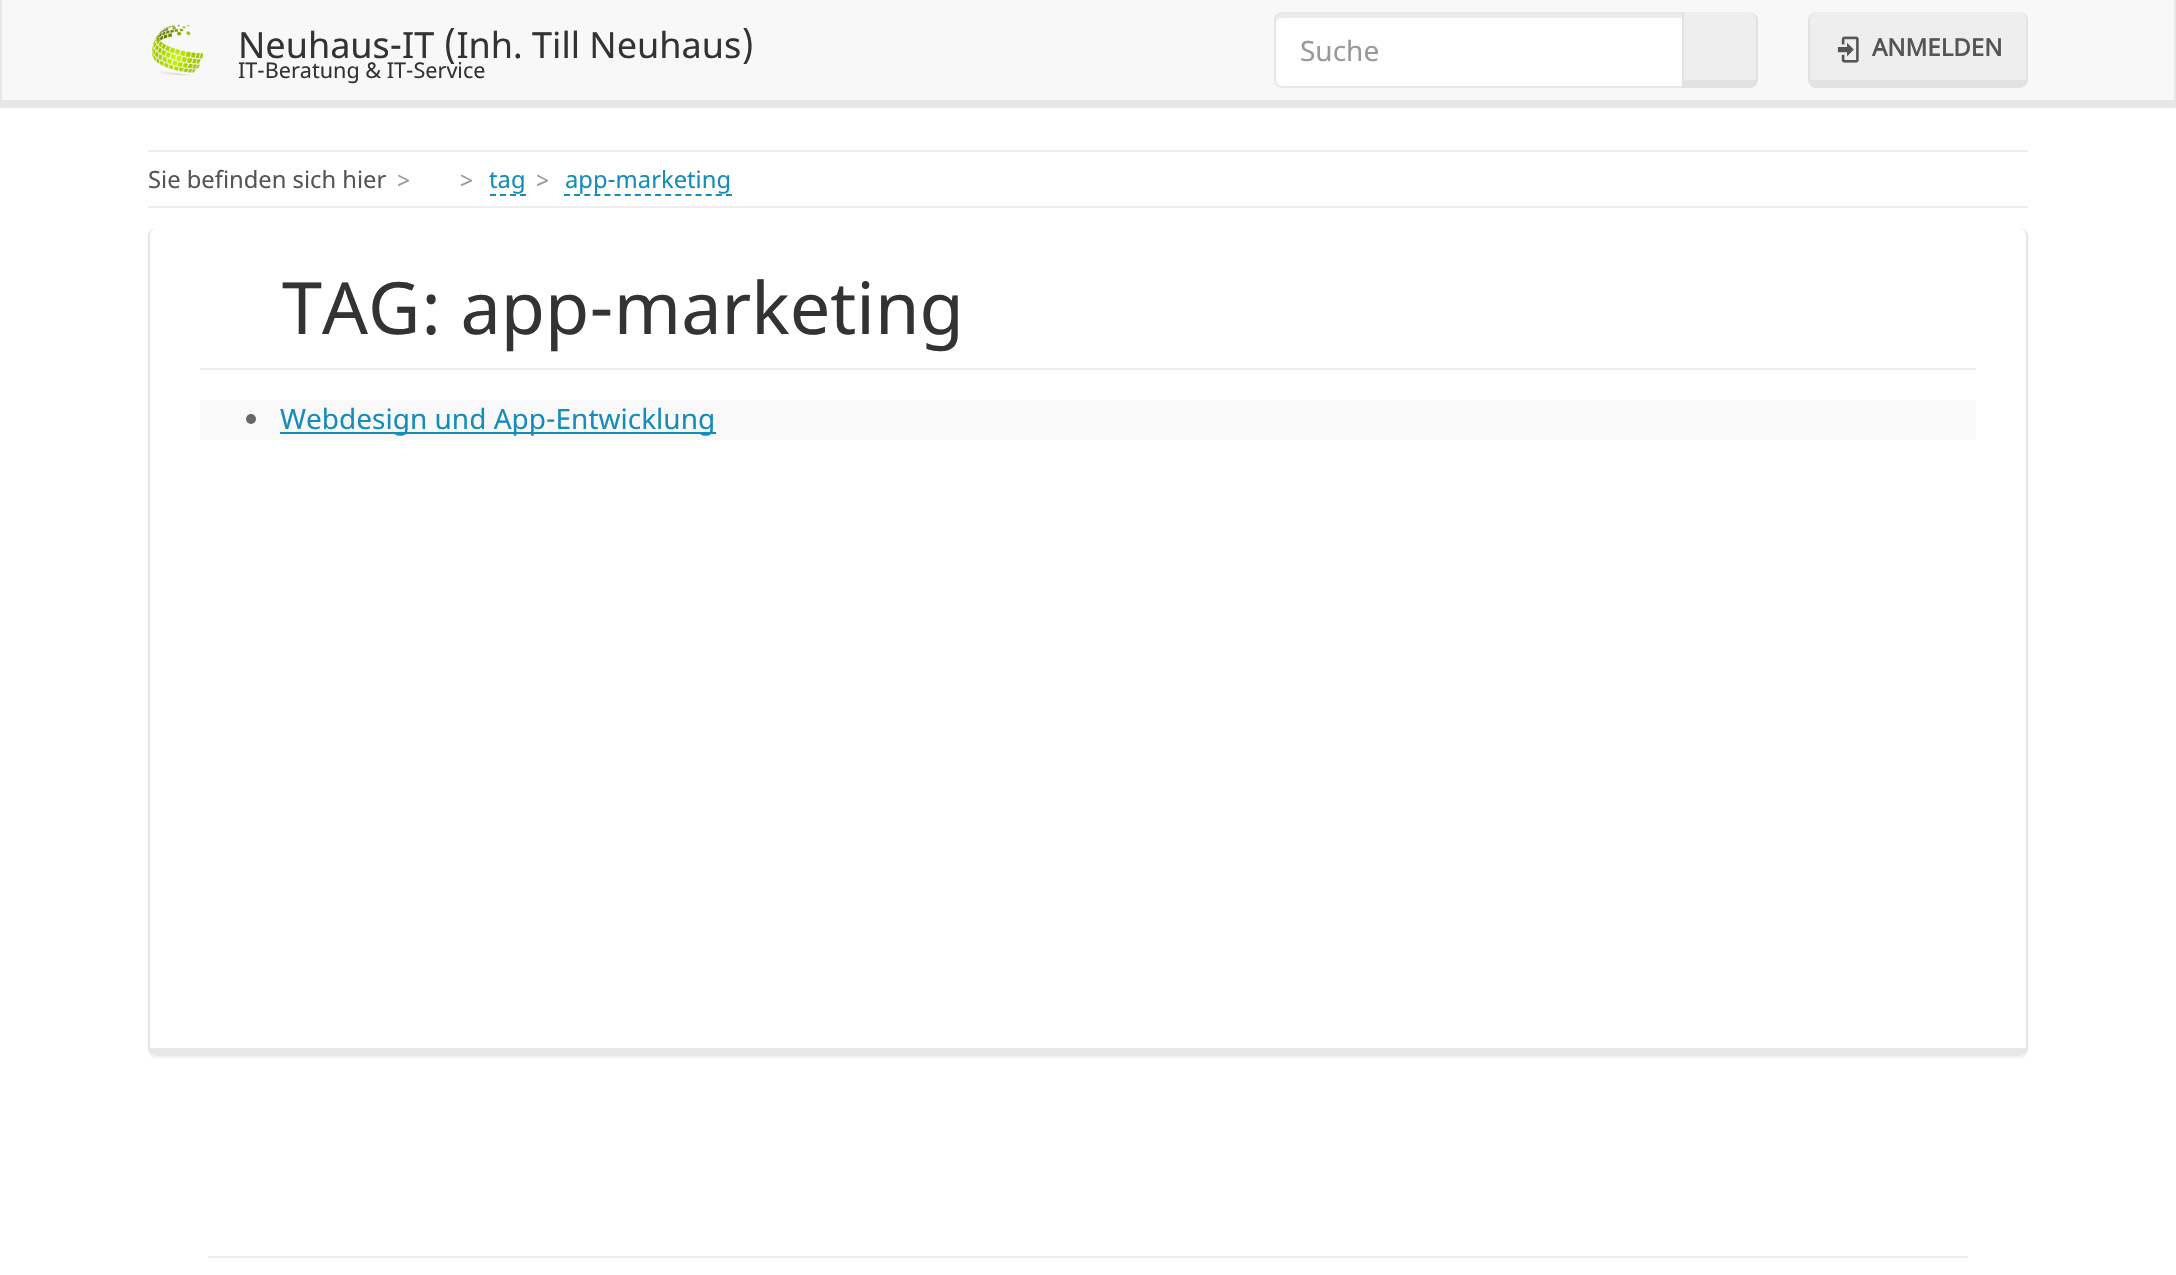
#include "include/core/SkBlurTypes.h"
#include "include/core/SkCanvas.h"
#include "include/core/SkData.h"
#include "include/core/SkFont.h"
#include "include/core/SkFontMgr.h"
#include "include/core/SkImage.h"
#include "include/core/SkMaskFilter.h"
#include "include/core/SkPaint.h"
#include "include/core/SkPathBuilder.h"
#include "include/core/SkTextBlob.h"
#include "include/effects/SkDashPathEffect.h"
#include "include/effects/SkGradientShader.h"
#include "include/utils/SkParsePath.h"

extern sk_sp<SkFontMgr> fontMgr;

static SkFont font(const char* family, int weight, float size, bool italic = false) {
    SkFontStyle style(weight, SkFontStyle::kNormal_Width,
        italic ? SkFontStyle::kItalic_Slant : SkFontStyle::kUpright_Slant);
    SkFont result(fontMgr->matchFamilyStyle(family, style), size);
    result.setSubpixel(true);
    return result;
}

static void drawLabel(SkCanvas* canvas, const char* s, float x, float y, const SkFont& font, SkColor color) {
    SkPaint ink(SkColor4f::FromColor(color));
    ink.setAntiAlias(true);
    canvas->drawString(s, x, y, font, ink);
}

static void fillRect(SkCanvas* canvas, float x, float y, float w, float h, SkColor color) {
    SkPaint ink(SkColor4f::FromColor(color));
    ink.setAntiAlias(true);
    canvas->drawRect(SkRect::MakeXYWH(x, y, w, h), ink);
}

static void drawPhoto(SkCanvas* canvas, const char* path, float x, float y, float w, float h) {
    auto image = SkImages::DeferredFromEncodedData(SkData::MakeFromFileName(path));
    canvas->drawImageRect(image, SkRect::MakeXYWH(x, y, w, h), SkSamplingOptions());
}

static SkPath parsePath(const char* data, bool evenOdd = false) {
    SkPath result = *SkParsePath::FromSVGString(data);
    if (evenOdd) result.setFillType(SkPathFillType::kEvenOdd);
    return result;
}

void draw(SkCanvas* canvas) {
    SkPaint paint;
    paint.setAntiAlias(true);
    canvas->clear(0xFFFFFFFF);
    fillRect(canvas, 2, 0, 2172, 100, 0xFFF8F8F8);
    fillRect(canvas, 2174, 0, 2, 108, 0xFFE7E7E7);
    fillRect(canvas, 0, 100, 2176, 8, 0xFFE7E7E7);
    fillRect(canvas, 0, 0, 2, 108, 0xFFE7E7E7);
    drawPhoto(canvas, "assets/img1.png", 151, 24, 53, 52);
    SkFont font1 = font("Noto Sans", 400, 36);
    drawLabel(canvas, "Neuhaus-IT (Inh. Till Neuhaus)", 238, 58, font1, 0xFF333333);
    SkFont font2 = font("Noto Sans", 400, 21.6f);
    drawLabel(canvas, "IT-Beratung & IT-Service", 238, 78, font2, 0xFF333333);
    paint.setColor(0xFFFFFFFF);
    canvas->drawPath(parsePath("M1282 12H1684V88H1282C1277.5 88 1274 84.5 1274 80V20C1274 15.5 1277.5 12 1282 12Z"), paint);
    paint.setColor(0xFFECECEC);
    canvas->drawPath(parsePath("M1282 18H1682V14H1282C1276 14 1276 20 1276 24C1276 21 1279 18 1282 18Z"), paint);
    paint.setStroke(true);
    paint.setStrokeWidth(2);
    paint.setColor(0xFFE7E7E7);
    canvas->drawPath(parsePath("M1282 13H1683V87H1282C1278 87 1275 84 1275 80V20C1275 16 1278 13 1282 13Z"), paint);
    SkFont font3 = font("Noto Sans", 400, 28);
    drawLabel(canvas, "Suche", 1300, 61, font3, 0xFF999999);
    paint.setStroke(false);
    paint.setColor(0xFFEEEEEE);
    canvas->drawPath(parsePath("M1684 12H1750C1753 12 1756 16 1756 20V80H1684Z"), paint);
    paint.setColor(0xFFE2E2E2);
    canvas->drawPath(parsePath("M1682 12H1750C1754 12 1758 16 1758 20V80C1758 84 1754 88 1750 88H1682ZM1684 12H1750C1753 12 1756 16 1756 20V80H1684Z", true), paint);
    paint.setColor(0xFFEEEEEE);
    canvas->drawPath(parsePath("M1816 12H2020C2023 12 2026 16 2026 20V80H1810V20C1810 16 1813 12 1816 12Z"), paint);
    paint.setColor(0xFFE2E2E2);
    canvas->drawPath(parsePath("M1816 12H2020C2024 12 2028 16 2028 20V80C2028 84 2024 88 2020 88H1816C1812 88 1808 84 1808 80V20C1808 16 1812 12 1816 12ZM1816 12H2020C2023 12 2026 16 2026 20V80H1810V20C1810 16 1813 12 1816 12Z", true), paint);
    drawPhoto(canvas, "assets/img2.png", 1837, 36, 22, 27);
    SkFont font4 = font("Noto Sans", 700, 24);
    drawLabel(canvas, "ANMELDEN", 1872, 56, font4, 0xFF555555);
    fillRect(canvas, 148, 150, 1880, 2, 0xFFEEEEEE);
    SkFont font5 = font("Noto Sans", 400, 23.75f);
    drawLabel(canvas, "Sie befinden sich hier", 148, 188, font5, 0xFF555555);
    drawLabel(canvas, ">", 397, 188, font5, 0xFF999999);
    drawLabel(canvas, ">", 460, 188, font5, 0xFF999999);
    drawLabel(canvas, "tag", 489, 188, font5, 0xFF158CBA);
    paint.setStroke(true);
    paint.setColor(0xFF158CBA);
    paint.setPathEffect(SkDashPathEffect::Make({{6, 4}}, 0));
    canvas->drawPath(parsePath("M490 195H526"), paint);
    paint.setPathEffect(nullptr);
    drawLabel(canvas, ">", 536, 188, font5, 0xFF999999);
    drawLabel(canvas, "app-marketing", 565, 188, font5, 0xFF158CBA);
    paint.setPathEffect(SkDashPathEffect::Make({{6, 4.12f}}, 0));
    canvas->drawPath(parsePath("M564 195H732"), paint);
    paint.setPathEffect(nullptr);
    fillRect(canvas, 148, 206, 1880, 2, 0xFFEEEEEE);
    canvas->save();
    canvas->clipPath(parsePath("M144 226H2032V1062H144ZM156 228H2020C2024.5 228 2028 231.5 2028 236V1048C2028 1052.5 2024.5 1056 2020 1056H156C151.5 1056 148 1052.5 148 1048V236C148 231.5 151.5 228 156 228Z", true), true);
    paint.setStroke(false);
    paint.setColor(0x0D000000);
    paint.setMaskFilter(SkMaskFilter::MakeBlur(kNormal_SkBlurStyle, 1));
    canvas->drawRoundRect(SkRect::MakeXYWH(148, 230, 1880, 828), 8, 8, paint);
    paint.setMaskFilter(nullptr);
    canvas->restore();
    paint.setColor(0xFFE7E7E7);
    canvas->drawPath(parsePath("M156 228H2020C2024 228 2028 232 2028 236V1048C2028 1052 2024 1056 2020 1056H156C152 1056 148 1052 148 1048V236C148 232 152 228 156 228ZM156 228H2020C2023 228 2026 232 2026 236V1048H150V236C150 232 153 228 156 228Z", true), paint);
    fillRect(canvas, 200, 368, 1776, 2, 0xFFEEEEEE);
    SkFont font6 = font("Noto Sans", 400, 72);
    drawLabel(canvas, "TAG: app-marketing", 282, 334, font6, 0xFF333333);
    fillRect(canvas, 200, 400, 1776, 40, 0xFFF9F9F9);
    paint.setColor(0xFF666666);
    canvas->drawCircle(251, 419, 5, paint);
    fillRect(canvas, 280, 432, 436, 2, 0xFF158CBA);
    drawLabel(canvas, "Webdesign und App-Entwicklung", 280, 429, font3, 0xFF158CBA);
    fillRect(canvas, 208, 1256, 1760, 2, 0xFFEEEEEE);
}
